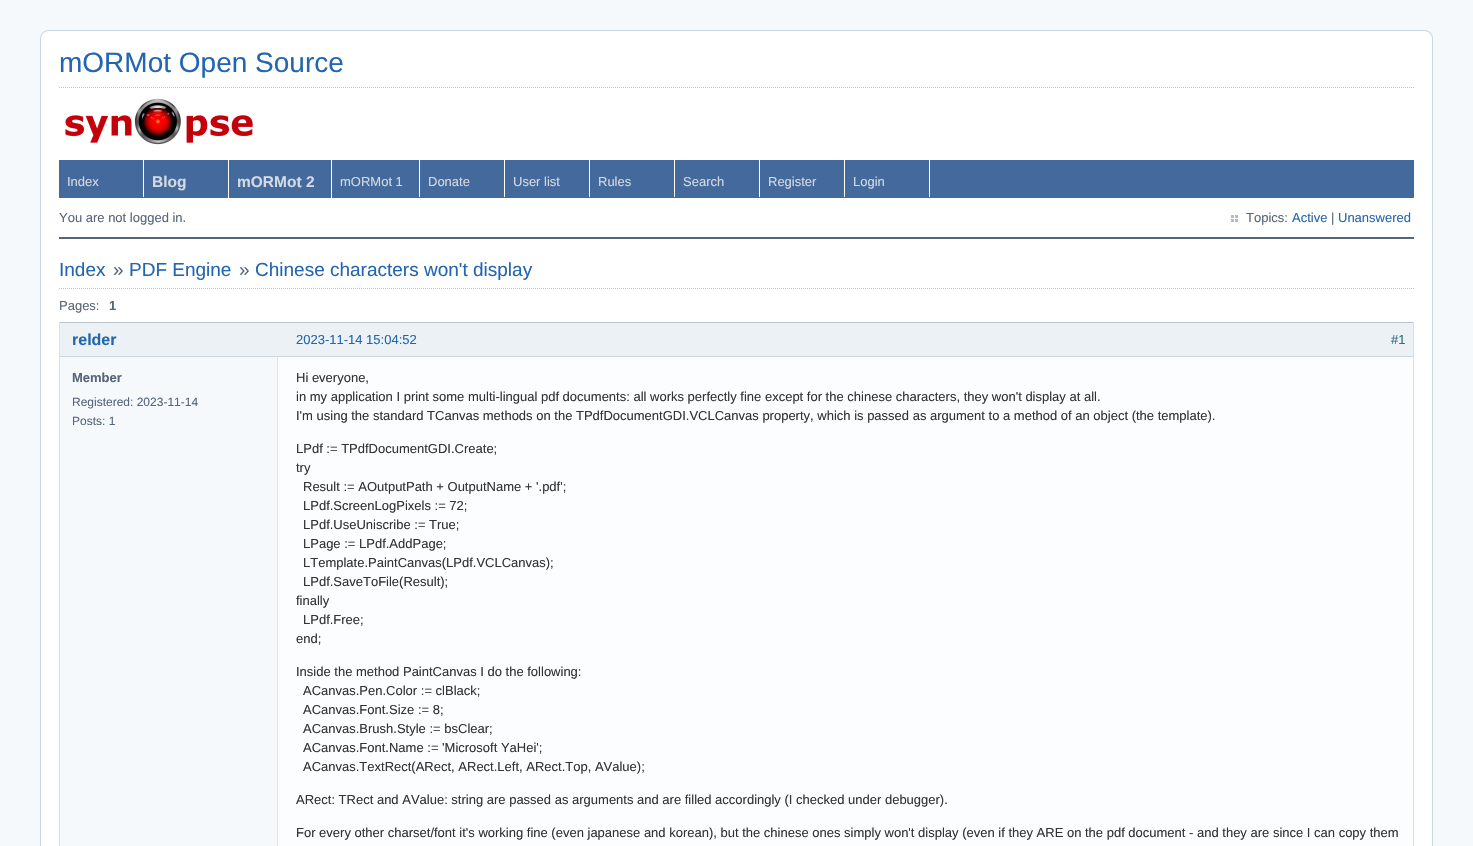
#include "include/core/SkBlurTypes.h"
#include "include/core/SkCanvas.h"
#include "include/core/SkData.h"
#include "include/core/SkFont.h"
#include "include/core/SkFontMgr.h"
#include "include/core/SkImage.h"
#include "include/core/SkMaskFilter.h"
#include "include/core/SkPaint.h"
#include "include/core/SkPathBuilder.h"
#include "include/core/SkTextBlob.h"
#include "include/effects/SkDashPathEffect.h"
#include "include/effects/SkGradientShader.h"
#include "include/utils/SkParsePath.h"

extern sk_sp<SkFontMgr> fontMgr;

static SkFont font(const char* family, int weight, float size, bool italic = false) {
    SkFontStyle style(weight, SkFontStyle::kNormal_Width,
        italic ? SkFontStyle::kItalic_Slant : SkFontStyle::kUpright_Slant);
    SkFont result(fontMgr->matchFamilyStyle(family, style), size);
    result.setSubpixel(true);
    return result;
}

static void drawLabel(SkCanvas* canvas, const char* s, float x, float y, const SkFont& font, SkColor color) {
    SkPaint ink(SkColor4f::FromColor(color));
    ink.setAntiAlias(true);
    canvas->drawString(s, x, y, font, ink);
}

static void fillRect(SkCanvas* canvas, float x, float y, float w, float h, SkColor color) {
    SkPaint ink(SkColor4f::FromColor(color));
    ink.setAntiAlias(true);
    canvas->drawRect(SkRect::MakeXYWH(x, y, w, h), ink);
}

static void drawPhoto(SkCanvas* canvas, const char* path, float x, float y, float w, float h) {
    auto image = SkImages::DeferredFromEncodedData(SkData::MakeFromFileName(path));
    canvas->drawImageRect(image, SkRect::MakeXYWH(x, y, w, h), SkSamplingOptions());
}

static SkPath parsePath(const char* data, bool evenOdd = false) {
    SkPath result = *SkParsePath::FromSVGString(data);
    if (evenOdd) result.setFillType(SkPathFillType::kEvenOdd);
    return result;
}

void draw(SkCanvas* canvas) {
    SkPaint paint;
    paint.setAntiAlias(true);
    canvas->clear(0xFFF6F9FC);
    fillRect(canvas, 41, 48, 1391, 798, 0xFFFFFFFF);
    paint.setStroke(true);
    paint.setStrokeWidth(1);
    paint.setColor(0xFFCAD7E1);
    canvas->drawRect(SkRect::MakeXYWH(40.5f, 30.5f, 1392, 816), paint);
    drawPhoto(canvas, "assets/img1.png", 40, 30, 1385, 18);
    drawPhoto(canvas, "assets/img2.png", 1425, 30, 8, 18);
    SkFont font1 = font("Liberation Sans", 400, 28);
    drawLabel(canvas, "mORMot Open Source", 59, 72, font1, 0xFF2365B0);
    paint.setColor(0xFFB9C5CE);
    paint.setPathEffect(SkDashPathEffect::Make({{1, 1}}, 0));
    canvas->drawPath(parsePath("M59 87.5H1414"), paint);
    paint.setPathEffect(nullptr);
    drawPhoto(canvas, "assets/img3.png", 65, 98, 188, 47);
    fillRect(canvas, 59, 160, 1355, 38, 0xFF44699C);
    fillRect(canvas, 143, 160, 1, 37, 0xFFFFFFFF);
    SkFont font2 = font("Liberation Sans", 400, 13);
    drawLabel(canvas, "Index", 67, 186, font2, 0xFFD4DAE2);
    fillRect(canvas, 228, 160, 1, 38, 0xFFFFFFFF);
    SkFont font3 = font("Liberation Sans", 700, 15.5f);
    drawLabel(canvas, "Blog", 152, 187, font3, 0xFFD4DAE2);
    fillRect(canvas, 331, 160, 1, 38, 0xFFFFFFFF);
    drawLabel(canvas, "mORMot 2", 237, 187, font3, 0xFFD4DAE2);
    fillRect(canvas, 419, 160, 1, 37, 0xFFFFFFFF);
    drawLabel(canvas, "mORMot 1", 340, 186, font2, 0xFFD4DAE2);
    fillRect(canvas, 504, 160, 1, 37, 0xFFFFFFFF);
    drawLabel(canvas, "Donate", 428, 186, font2, 0xFFD4DAE2);
    fillRect(canvas, 589, 160, 1, 37, 0xFFFFFFFF);
    drawLabel(canvas, "User list", 513, 186, font2, 0xFFD4DAE2);
    fillRect(canvas, 674, 160, 1, 37, 0xFFFFFFFF);
    drawLabel(canvas, "Rules", 598, 186, font2, 0xFFD4DAE2);
    fillRect(canvas, 759, 160, 1, 37, 0xFFFFFFFF);
    drawLabel(canvas, "Search", 683, 186, font2, 0xFFD4DAE2);
    fillRect(canvas, 844, 160, 1, 37, 0xFFFFFFFF);
    drawLabel(canvas, "Register", 768, 186, font2, 0xFFD4DAE2);
    fillRect(canvas, 929, 160, 1, 37, 0xFFFFFFFF);
    drawLabel(canvas, "Login", 853, 186, font2, 0xFFD4DAE2);
    drawLabel(canvas, "You are not logged in.", 59, 222, font2, 0xFF566579);
    drawPhoto(canvas, "assets/img4.png", 1231, 215, 7, 7);
    drawLabel(canvas, "Topics:", 1246, 222, font2, 0xFF566579);
    drawLabel(canvas, "Active", 1292, 222, font2, 0xFF2365B0);
    drawLabel(canvas, "|", 1331, 222, font2, 0xFF566579);
    drawLabel(canvas, "Unanswered", 1338, 222, font2, 0xFF2365B0);
    fillRect(canvas, 59, 237, 1355, 2, 0xFF566579);
    SkFont font4 = font("Liberation Sans", 400, 19);
    drawLabel(canvas, "Index", 59, 276, font4, 0xFF2365B0);
    drawLabel(canvas, "»", 113, 276, font4, 0xFF566579);
    drawLabel(canvas, "PDF Engine", 129, 276, font4, 0xFF2365B0);
    drawLabel(canvas, "»", 239, 276, font4, 0xFF566579);
    drawLabel(canvas, "Chinese characters won't display", 255, 276, font4, 0xFF2365B0);
    paint.setPathEffect(SkDashPathEffect::Make({{1, 1}}, 0));
    canvas->drawPath(parsePath("M59 288.5H1414"), paint);
    paint.setPathEffect(nullptr);
    drawLabel(canvas, "Pages:", 59, 310, font2, 0xFF566579);
    SkFont font5 = font("Liberation Sans", 700, 13);
    drawLabel(canvas, "1", 109, 310, font5, 0xFF566579);
    fillRect(canvas, 60, 357, 217, 489, 0xFFF6F9FC);
    fillRect(canvas, 59, 322, 1355, 1, 0xFFB9C5CE);
    fillRect(canvas, 1413, 322, 1, 524, 0xFFD9E1E7);
    fillRect(canvas, 59, 322, 1, 524, 0xFFD9E1E7);
    fillRect(canvas, 278, 357, 1135, 489, 0xFFFCFDFE);
    fillRect(canvas, 277, 357, 1, 489, 0xFFDFE6EE);
    fillRect(canvas, 60, 323, 1353, 33, 0xFFEBF1F5);
    SkFont font6 = font("Liberation Sans", 700, 16);
    drawLabel(canvas, "relder", 72, 345, font6, 0xFF2365B0);
    drawLabel(canvas, "Member", 72, 382, font5, 0xFF566579);
    SkFont font7 = font("Liberation Sans", 400, 12);
    drawLabel(canvas, "Registered: 2023-11-14", 72, 406, font7, 0xFF566579);
    drawLabel(canvas, "Posts: 1", 72, 425, font7, 0xFF566579);
    drawLabel(canvas, "Hi everyone,", 296, 382, font2, 0xFF333333);
    drawLabel(canvas, "in my application I print some multi-lingual pdf documents: all works perfectly fine except for the chinese characters, they won't display at all.", 296, 401, font2, 0xFF333333);
    drawLabel(canvas, "I'm using the standard TCanvas methods on the TPdfDocumentGDI.VCLCanvas property, which is passed as argument to a method of an object (the template).", 296, 420, font2, 0xFF333333);
    drawLabel(canvas, "LPdf := TPdfDocumentGDI.Create;", 296, 453, font2, 0xFF333333);
    drawLabel(canvas, "try", 296, 472, font2, 0xFF333333);
    drawLabel(canvas, "Result := AOutputPath + OutputName + '.pdf';", 303, 491, font2, 0xFF333333);
    drawLabel(canvas, "LPdf.ScreenLogPixels := 72;", 303, 510, font2, 0xFF333333);
    drawLabel(canvas, "LPdf.UseUniscribe := True;", 303, 529, font2, 0xFF333333);
    drawLabel(canvas, "LPage := LPdf.AddPage;", 303, 548, font2, 0xFF333333);
    drawLabel(canvas, "LTemplate.PaintCanvas(LPdf.VCLCanvas);", 303, 567, font2, 0xFF333333);
    drawLabel(canvas, "LPdf.SaveToFile(Result);", 303, 586, font2, 0xFF333333);
    drawLabel(canvas, "finally", 296, 605, font2, 0xFF333333);
    drawLabel(canvas, "LPdf.Free;", 303, 624, font2, 0xFF333333);
    drawLabel(canvas, "end;", 296, 643, font2, 0xFF333333);
    drawLabel(canvas, "Inside the method PaintCanvas I do the following:", 296, 676, font2, 0xFF333333);
    drawLabel(canvas, "ACanvas.Pen.Color := clBlack;", 303, 695, font2, 0xFF333333);
    drawLabel(canvas, "ACanvas.Font.Size := 8;", 303, 714, font2, 0xFF333333);
    drawLabel(canvas, "ACanvas.Brush.Style := bsClear;", 303, 733, font2, 0xFF333333);
    drawLabel(canvas, "ACanvas.Font.Name := 'Microsoft YaHei';", 303, 752, font2, 0xFF333333);
    drawLabel(canvas, "ACanvas.TextRect(ARect, ARect.Left, ARect.Top, AValue);", 303, 771, font2, 0xFF333333);
    drawLabel(canvas, "ARect: TRect and AValue: string are passed as arguments and are filled accordingly (I checked under debugger).", 296, 804, font2, 0xFF333333);
    drawLabel(canvas, "For every other charset/font it's working fine (even japanese and korean), but the chinese ones simply won't display (even if they ARE on the pdf document - and they are since I can copy them", 296, 837, font2, 0xFF333333);
    fillRect(canvas, 60, 356, 1353, 1, 0xFFCAD7E1);
    drawLabel(canvas, "2023-11-14 15:04:52", 296, 344, font2, 0xFF2365B0);
    drawLabel(canvas, "#1", 1391, 344, font2, 0xFF357082);
}
